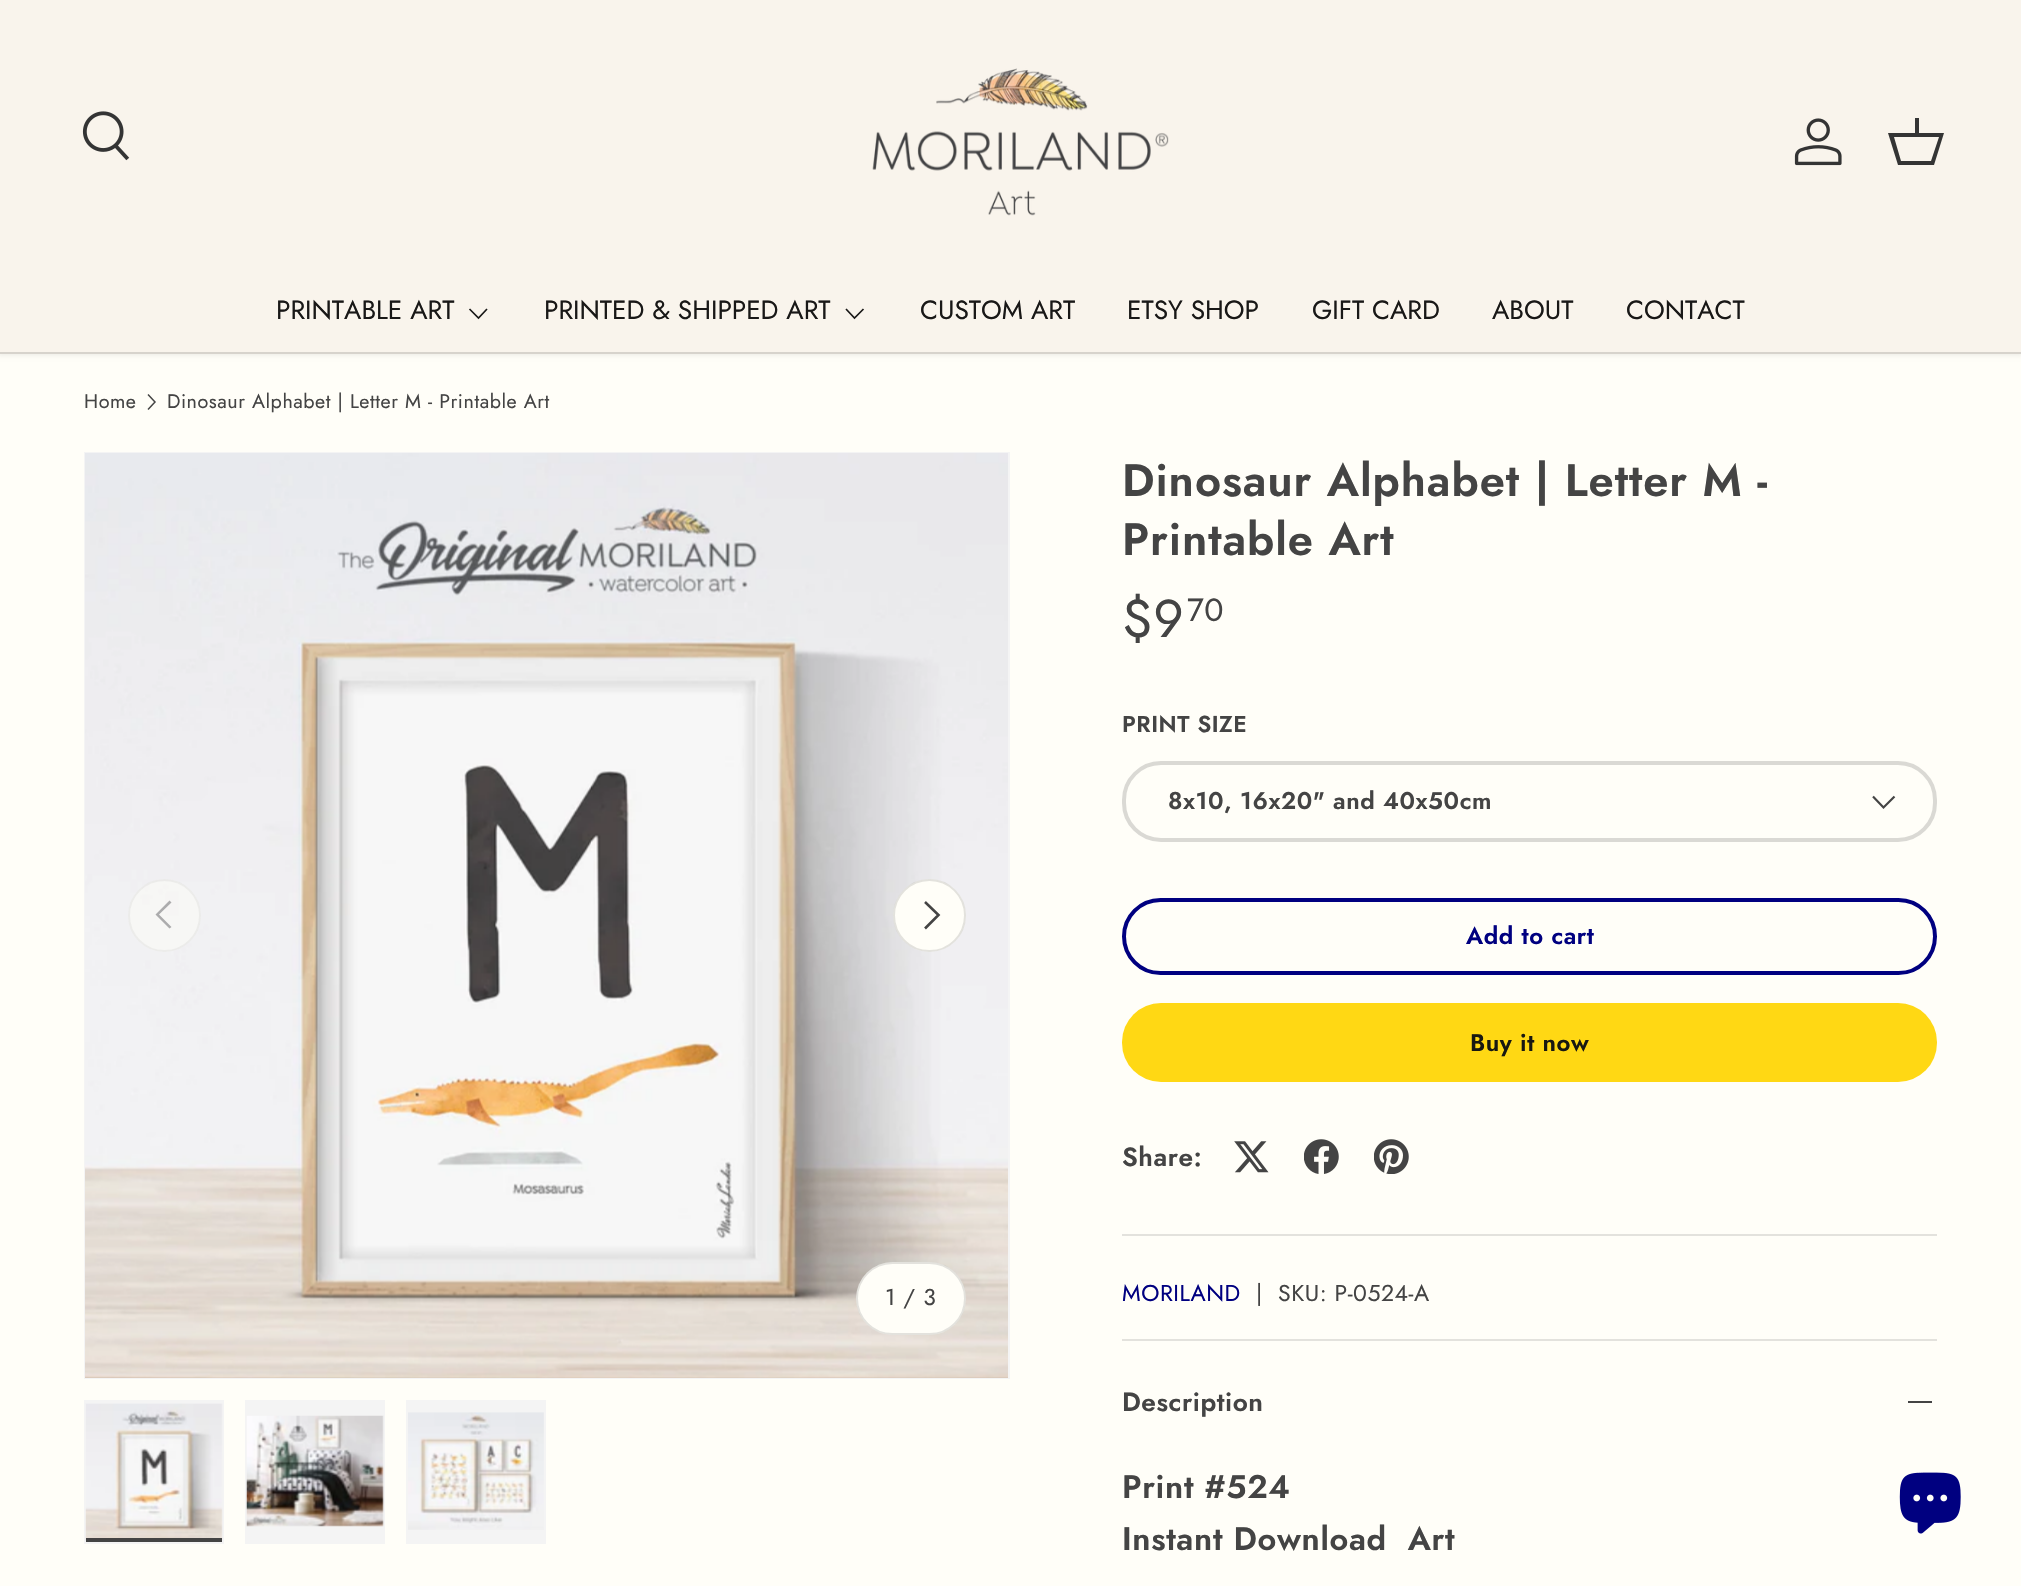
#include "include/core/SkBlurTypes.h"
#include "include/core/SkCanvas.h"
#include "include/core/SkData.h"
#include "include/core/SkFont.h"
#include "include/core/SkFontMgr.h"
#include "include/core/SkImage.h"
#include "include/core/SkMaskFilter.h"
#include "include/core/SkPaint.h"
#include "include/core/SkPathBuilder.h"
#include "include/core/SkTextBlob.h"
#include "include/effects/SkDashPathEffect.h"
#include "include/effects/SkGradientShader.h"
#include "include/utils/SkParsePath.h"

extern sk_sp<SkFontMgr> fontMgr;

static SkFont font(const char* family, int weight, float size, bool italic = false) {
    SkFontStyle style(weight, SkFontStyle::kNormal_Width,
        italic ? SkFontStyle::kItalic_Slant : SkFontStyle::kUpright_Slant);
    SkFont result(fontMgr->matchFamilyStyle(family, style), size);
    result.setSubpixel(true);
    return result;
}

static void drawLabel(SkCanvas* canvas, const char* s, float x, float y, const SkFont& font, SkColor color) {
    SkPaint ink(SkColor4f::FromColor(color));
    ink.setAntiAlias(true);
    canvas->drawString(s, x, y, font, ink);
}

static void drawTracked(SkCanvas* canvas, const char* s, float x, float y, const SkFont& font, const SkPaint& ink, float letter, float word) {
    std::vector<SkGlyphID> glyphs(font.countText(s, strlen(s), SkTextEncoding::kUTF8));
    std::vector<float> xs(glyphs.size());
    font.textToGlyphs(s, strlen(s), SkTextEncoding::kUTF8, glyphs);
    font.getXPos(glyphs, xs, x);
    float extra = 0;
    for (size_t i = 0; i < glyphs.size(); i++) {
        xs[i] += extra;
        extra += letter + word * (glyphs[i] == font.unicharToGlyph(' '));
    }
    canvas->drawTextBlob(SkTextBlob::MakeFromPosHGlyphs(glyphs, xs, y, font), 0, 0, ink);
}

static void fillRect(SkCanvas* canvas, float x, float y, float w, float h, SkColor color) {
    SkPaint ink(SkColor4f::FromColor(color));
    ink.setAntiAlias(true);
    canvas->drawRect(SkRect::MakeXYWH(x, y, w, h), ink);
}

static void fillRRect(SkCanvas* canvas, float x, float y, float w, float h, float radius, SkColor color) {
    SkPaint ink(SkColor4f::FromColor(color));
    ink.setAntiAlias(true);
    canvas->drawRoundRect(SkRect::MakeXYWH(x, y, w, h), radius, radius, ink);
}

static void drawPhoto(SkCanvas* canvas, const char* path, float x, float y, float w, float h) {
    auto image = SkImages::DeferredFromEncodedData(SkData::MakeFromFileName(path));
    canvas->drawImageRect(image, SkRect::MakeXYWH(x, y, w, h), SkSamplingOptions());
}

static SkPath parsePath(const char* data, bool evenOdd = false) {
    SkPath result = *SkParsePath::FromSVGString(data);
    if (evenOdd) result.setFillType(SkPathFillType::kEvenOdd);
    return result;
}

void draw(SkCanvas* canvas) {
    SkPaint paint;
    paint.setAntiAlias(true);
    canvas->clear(0xFFFFFEF8);
    paint.setColor(0x14000000);
    paint.setMaskFilter(SkMaskFilter::MakeBlur(kNormal_SkBlurStyle, 2.5f));
    canvas->drawRect(SkRect::MakeXYWH(-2, -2, 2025, 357), paint);
    paint.setMaskFilter(nullptr);
    fillRect(canvas, 0, 0, 2021, 352, 0xFFF9F4EC);
    drawPhoto(canvas, "assets/img1.png", 82, 111, 48, 50);
    drawPhoto(canvas, "assets/img2.png", 872, 68, 297, 148);
    drawPhoto(canvas, "assets/img3.png", 1794, 118, 48, 48);
    paint.setColor(0xFF343434);
    canvas->drawPath(parsePath("M1915 133V118H1919V133H1944L1934 165H1898L1888 133ZM1894 137L1901 161H1931L1939 137Z"), paint);
    SkFont font1 = font("Jost", 400, 26.25f);
    drawLabel(canvas, "PRINTABLE ART", 276, 319, font1, 0xFF191817);
    paint.setStroke(true);
    paint.setStrokeWidth(1.7f);
    paint.setColor(0xFF191817);
    canvas->drawPath(parsePath("M487 309L478.5 318L469.5 309"), paint);
    drawLabel(canvas, "PRINTED & SHIPPED ART", 544, 319, font1, 0xFF191817);
    canvas->drawPath(parsePath("M863.5 309L854.5 318L846 309"), paint);
    drawLabel(canvas, "CUSTOM ART", 920, 319, font1, 0xFF191817);
    drawLabel(canvas, "ETSY SHOP", 1127, 319, font1, 0xFF191817);
    drawLabel(canvas, "GIFT CARD", 1312, 319, font1, 0xFF191817);
    drawLabel(canvas, "ABOUT", 1492, 319, font1, 0xFF191817);
    drawLabel(canvas, "CONTACT", 1626, 319, font1, 0xFF191817);
    fillRect(canvas, 0, 352, 2021, 2, 0xFFD7D3CC);
    SkFont font2 = font("Jost", 400, 19.7f);
    paint.setStroke(false);
    paint.setColor(0xFF444444);
    drawTracked(canvas, "Home", 84, 408, font2, paint, 0.55f, 0);
    paint.setStroke(true);
    paint.setStrokeWidth(1.5f);
    canvas->drawPath(parsePath("M148 394.5L155 402L148 409.5"), paint);
    paint.setStroke(false);
    drawTracked(canvas, "Dinosaur Alphabet | Letter M - Printable Art", 167, 408, font2, paint, 0.55f, 0);
    fillRect(canvas, 84, 452, 926, 927, 0xFFF4F4F4);
    drawPhoto(canvas, "assets/img4.png", 85, 453, 923, 925);
    paint.setColor(0x66FFFEF8);
    canvas->drawCircle(164.5f, 915.5f, 36.5f, paint);
    paint.setStroke(true);
    paint.setStrokeWidth(2);
    paint.setColor(0x26ACACAD);
    canvas->drawCircle(164.5f, 915.5f, 35.5f, paint);
    paint.setStroke(false);
    paint.setColor(0xFFACACAD);
    canvas->drawPath(parsePath("M155.5 914.5L169.5 900.5L171.5 902.5L159 914.5L171.5 927L169.5 928.5Z"), paint);
    paint.setColor(0xFFFFFEF8);
    canvas->drawCircle(929.5f, 915.5f, 36.5f, paint);
    paint.setStroke(true);
    paint.setColor(0x26444444);
    canvas->drawCircle(929.5f, 915.5f, 35.5f, paint);
    paint.setStrokeWidth(2.6f);
    paint.setColor(0xFF444444);
    canvas->drawPath(parsePath("M925 902L938.5 915L925 928.5"), paint);
    fillRRect(canvas, 856, 1262, 110, 73, 36.5f, 0xFFFFFEF8);
    paint.setStrokeWidth(2);
    paint.setColor(0x26444444);
    canvas->drawRoundRect(SkRect::MakeXYWH(857, 1263, 108, 71), 35.5f, 35.5f, paint);
    SkFont font3 = font("Jost", 400, 23);
    paint.setStroke(false);
    paint.setColor(0xFF444444);
    drawTracked(canvas, "1 / 3", 885, 1305, font3, paint, 0.55f, 0);
    fillRect(canvas, 84, 1400, 140, 144, 0xFFF4F4F4);
    drawPhoto(canvas, "assets/img5.png", 85, 1403, 138, 138);
    fillRect(canvas, 86, 1538, 136, 4, 0xFF444444);
    fillRect(canvas, 245, 1400, 140, 144, 0xFFF4F4F4);
    drawPhoto(canvas, "assets/img6.png", 246, 1415, 138, 112);
    fillRect(canvas, 406, 1400, 140, 144, 0xFFF4F4F4);
    drawPhoto(canvas, "assets/img7.png", 408, 1412, 136, 118);
    SkFont font4 = font("Jost", 600, 45.4f);
    drawTracked(canvas, "Dinosaur Alphabet | Letter M -", 1122, 496, font4, paint, 0.9f, 0);
    drawTracked(canvas, "Printable Art", 1122, 555, font4, paint, 0.9f, 0);
    SkFont font5 = font("Jost", 400, 53);
    drawTracked(canvas, "$9", 1122, 637, font5, paint, 0.55f, 0);
    SkFont font6 = font("Jost", 400, 32);
    drawTracked(canvas, "70", 1187, 621, font6, paint, 0.55f, 0);
    SkFont font7 = font("Jost", 600, 23);
    drawTracked(canvas, "PRINT SIZE", 1122, 732, font7, paint, 0.55f, 0);
    paint.setStroke(true);
    paint.setStrokeWidth(4);
    paint.setColor(0xFFDAD9D4);
    canvas->drawRoundRect(SkRect::MakeXYWH(1124, 763, 811, 77), 37, 37, paint);
    SkFont font8 = font("Jost", 600, 24.1f);
    paint.setStroke(false);
    paint.setColor(0xFF444444);
    drawTracked(canvas, "8x10, 16x20\" and 40x50cm", 1168, 809, font8, paint, 0.55f, 0);
    paint.setStroke(true);
    paint.setStrokeWidth(2.2f);
    canvas->drawPath(parsePath("M1894.5 796.5L1883.5 807.5L1873 796.5"), paint);
    paint.setStrokeWidth(4);
    paint.setColor(0xFF000080);
    canvas->drawRoundRect(SkRect::MakeXYWH(1124, 900, 811, 73), 36.5f, 36.5f, paint);
    paint.setStroke(false);
    drawTracked(canvas, "Add to cart", 1466, 944, font8, paint, 0.55f, 0);
    {
        const SkColor colors[] = {0xFFEAC716, 0xFFFFD814, 0xFFFFD814};
        const float stops[] = {0.6f, 0.6f, 1};
        const SkPoint ends[] = {{-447, 753}, {1875, 1332}};
        paint.setShader(SkGradientShader::MakeLinear(ends, colors, stops, 3, SkTileMode::kClamp));
        paint.setAlpha(255);
    }
    canvas->drawRoundRect(SkRect::MakeXYWH(1122, 1003, 815, 79), 39, 39, paint);
    paint.setShader(nullptr);
    paint.setColor(0xFF181811);
    drawTracked(canvas, "Buy it now", 1470, 1051, font8, paint, 0.55f, 0);
    SkFont font9 = font("Jost", 600, 26.25f);
    paint.setColor(0xFF444444);
    drawTracked(canvas, "Share:", 1122, 1166, font9, paint, 0.55f, 0);
    drawPhoto(canvas, "assets/img8.png", 1234, 1141, 35, 32);
    drawPhoto(canvas, "assets/img9.png", 1304, 1139, 35, 35);
    drawPhoto(canvas, "assets/img10.png", 1374, 1139, 35, 35);
    fillRect(canvas, 1122, 1234, 815, 2, 0xFFE3E2DD);
    paint.setColor(0xFF000080);
    drawTracked(canvas, "MORILAND", 1122, 1301, font3, paint, 0.55f, 0);
    paint.setColor(0xFF444444);
    drawTracked(canvas, "|", 1256, 1301, font3, paint, 0.55f, 0);
    drawTracked(canvas, "SKU: P-0524-A", 1278, 1301, font3, paint, 0.55f, 0);
    fillRect(canvas, 1122, 1339, 815, 2, 0xFFE3E2DD);
    drawTracked(canvas, "Description", 1122, 1411, font9, paint, 0.55f, 0);
    fillRect(canvas, 1908, 1401, 24, 2, 0xFF444444);
    SkFont font10 = font("Jost", 600, 32.6f);
    drawTracked(canvas, "Print #524", 1122, 1498, font10, paint, 0.65f, 0);
    drawTracked(canvas, "Instant Download  Art", 1122, 1550, font10, paint, 0.65f, 0);
    drawPhoto(canvas, "assets/img11.png", 1899, 1472, 62, 62);
}
